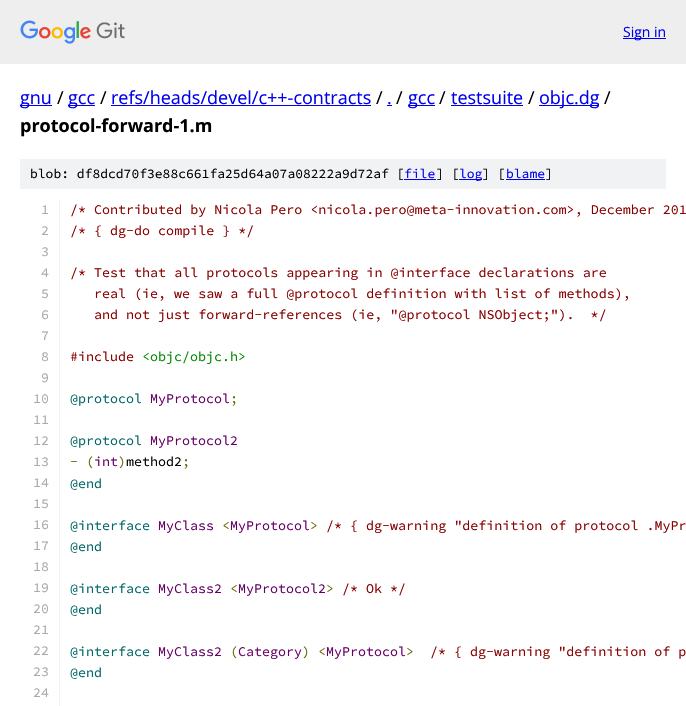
#include "include/core/SkBlurTypes.h"
#include "include/core/SkCanvas.h"
#include "include/core/SkData.h"
#include "include/core/SkFont.h"
#include "include/core/SkFontMgr.h"
#include "include/core/SkImage.h"
#include "include/core/SkMaskFilter.h"
#include "include/core/SkPaint.h"
#include "include/core/SkPathBuilder.h"
#include "include/core/SkTextBlob.h"
#include "include/effects/SkDashPathEffect.h"
#include "include/effects/SkGradientShader.h"
#include "include/utils/SkParsePath.h"

extern sk_sp<SkFontMgr> fontMgr;

static SkFont font(const char* family, int weight, float size, bool italic = false) {
    SkFontStyle style(weight, SkFontStyle::kNormal_Width,
        italic ? SkFontStyle::kItalic_Slant : SkFontStyle::kUpright_Slant);
    SkFont result(fontMgr->matchFamilyStyle(family, style), size);
    result.setSubpixel(true);
    return result;
}

static void drawLabel(SkCanvas* canvas, const char* s, float x, float y, const SkFont& font, SkColor color) {
    SkPaint ink(SkColor4f::FromColor(color));
    ink.setAntiAlias(true);
    canvas->drawString(s, x, y, font, ink);
}

static void fillRect(SkCanvas* canvas, float x, float y, float w, float h, SkColor color) {
    SkPaint ink(SkColor4f::FromColor(color));
    ink.setAntiAlias(true);
    canvas->drawRect(SkRect::MakeXYWH(x, y, w, h), ink);
}

static void drawPhoto(SkCanvas* canvas, const char* path, float x, float y, float w, float h) {
    auto image = SkImages::DeferredFromEncodedData(SkData::MakeFromFileName(path));
    canvas->drawImageRect(image, SkRect::MakeXYWH(x, y, w, h), SkSamplingOptions());
}

void draw(SkCanvas* canvas) {
    SkPaint paint;
    paint.setAntiAlias(true);
    canvas->clear(0xFFFFFFFF);
    fillRect(canvas, 0, 0, 686, 64, 0xFFEEEEEE);
    drawPhoto(canvas, "assets/img1.png", 20, 20, 105, 24);
    fillRect(canvas, 623, 38, 43, 1, 0xFF0000EE);
    SkFont font1 = font("Open Sans", 400, 14);
    drawLabel(canvas, "Sign in", 623, 37, font1, 0xFF0000EE);
    fillRect(canvas, 20, 105, 32, 1, 0xFF0000EE);
    SkFont font2 = font("Open Sans", 400, 18);
    drawLabel(canvas, "gnu", 20, 104, font2, 0xFF0000EE);
    drawLabel(canvas, "/", 57, 104, font2, 0xFF000000);
    fillRect(canvas, 68, 105, 27, 1, 0xFF0000EE);
    drawLabel(canvas, "gcc", 68, 104, font2, 0xFF0000EE);
    drawLabel(canvas, "/", 100, 104, font2, 0xFF000000);
    drawLabel(canvas, "refs/heads/devel/c++-contracts", 111, 104, font2, 0xFF0000EE);
    fillRect(canvas, 111, 105, 260, 1, 0xFF0000EE);
    drawLabel(canvas, "/", 376, 104, font2, 0xFF000000);
    drawLabel(canvas, ".", 387, 104, font2, 0xFF0000EE);
    fillRect(canvas, 387, 105, 5, 1, 0xFF0000EE);
    drawLabel(canvas, "/", 396, 104, font2, 0xFF000000);
    fillRect(canvas, 408, 105, 27, 1, 0xFF0000EE);
    drawLabel(canvas, "gcc", 408, 104, font2, 0xFF0000EE);
    drawLabel(canvas, "/", 439, 104, font2, 0xFF000000);
    drawLabel(canvas, "testsuite", 451, 104, font2, 0xFF0000EE);
    fillRect(canvas, 451, 105, 72, 1, 0xFF0000EE);
    drawLabel(canvas, "/", 528, 104, font2, 0xFF000000);
    fillRect(canvas, 539, 105, 60, 1, 0xFF0000EE);
    drawLabel(canvas, "objc.dg", 539, 104, font2, 0xFF0000EE);
    drawLabel(canvas, "/", 604, 104, font2, 0xFF000000);
    SkFont font3 = font("Open Sans", 700, 18);
    drawLabel(canvas, "protocol-forward-1.m", 20, 132, font3, 0xFF000000);
    fillRect(canvas, 20, 159, 646, 30, 0xFFF1F2F3);
    SkFont font4 = font("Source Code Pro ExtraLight", 200, 13);
    drawLabel(canvas, "blob: df8dcd70f3e88c661fa25d64a07a08222a9d72af [", 30, 178, font4, 0xFF000000);
    drawLabel(canvas, "file", 404, 178, font4, 0xFF0000EE);
    fillRect(canvas, 404, 179, 32, 1, 0xFF0000EE);
    drawLabel(canvas, "] [", 436, 178, font4, 0xFF000000);
    fillRect(canvas, 459, 179, 23, 1, 0xFF0000EE);
    drawLabel(canvas, "log", 459, 178, font4, 0xFF0000EE);
    drawLabel(canvas, "] [", 482, 178, font4, 0xFF000000);
    drawLabel(canvas, "blame", 506, 178, font4, 0xFF0000EE);
    fillRect(canvas, 506, 179, 39, 1, 0xFF0000EE);
    drawLabel(canvas, "]", 545, 178, font4, 0xFF000000);
    fillRect(canvas, 59, 200, 1, 20, 0xFFF1F2F3);
    SkFont font5 = font("Source Code Pro ExtraLight", 200, 13.35f);
    drawLabel(canvas, "1", 41, 214, font5, 0xFFAAAAAA);
    drawLabel(canvas, "/* Contributed by Nicola Pero <nicola.pero@meta-innovation.com>, December 201", 70, 214, font5, 0xFF880000);
    fillRect(canvas, 59, 221, 1, 20, 0xFFF1F2F3);
    drawLabel(canvas, "2", 41, 235, font5, 0xFFAAAAAA);
    drawLabel(canvas, "/* { dg-do compile } */", 70, 235, font5, 0xFF880000);
    fillRect(canvas, 59, 242, 1, 464, 0xFFF1F2F3);
    drawLabel(canvas, "3", 41, 256, font5, 0xFFAAAAAA);
    drawLabel(canvas, "4", 41, 277, font5, 0xFFAAAAAA);
    drawLabel(canvas, "/* Test that all protocols appearing in @interface declarations are", 70, 277, font5, 0xFF880000);
    drawLabel(canvas, "5", 41, 298, font5, 0xFFAAAAAA);
    drawLabel(canvas, "real (ie, we saw a full @protocol definition with list of methods),", 94, 298, font5, 0xFF880000);
    drawLabel(canvas, "6", 41, 319, font5, 0xFFAAAAAA);
    drawLabel(canvas, "and not just forward-references (ie, \"@protocol NSObject;\").  */", 94, 319, font5, 0xFF880000);
    drawLabel(canvas, "7", 41, 340, font5, 0xFFAAAAAA);
    drawLabel(canvas, "8", 41, 361, font5, 0xFFAAAAAA);
    drawLabel(canvas, "#include", 70, 361, font5, 0xFF880000);
    drawLabel(canvas, "<objc/objc.h>", 142, 361, font5, 0xFF008800);
    drawLabel(canvas, "9", 41, 382, font5, 0xFFAAAAAA);
    drawLabel(canvas, "10", 33, 403, font5, 0xFFAAAAAA);
    drawLabel(canvas, "@protocol", 70, 403, font5, 0xFF006666);
    drawLabel(canvas, "MyProtocol", 150, 403, font5, 0xFF660066);
    drawLabel(canvas, ";", 230, 403, font5, 0xFF666600);
    drawLabel(canvas, "11", 33, 424, font5, 0xFFAAAAAA);
    drawLabel(canvas, "12", 33, 445, font5, 0xFFAAAAAA);
    drawLabel(canvas, "@protocol", 70, 445, font5, 0xFF006666);
    drawLabel(canvas, "MyProtocol2", 150, 445, font5, 0xFF660066);
    drawLabel(canvas, "13", 33, 466, font5, 0xFFAAAAAA);
    drawLabel(canvas, "- (", 70, 466, font5, 0xFF666600);
    drawLabel(canvas, "int", 94, 466, font5, 0xFF660066);
    drawLabel(canvas, ")", 118, 466, font5, 0xFF666600);
    drawLabel(canvas, "method2", 126, 466, font5, 0xFF000000);
    drawLabel(canvas, ";", 182, 466, font5, 0xFF666600);
    drawLabel(canvas, "14", 33, 487, font5, 0xFFAAAAAA);
    drawLabel(canvas, "@end", 70, 488, font5, 0xFF006666);
    drawLabel(canvas, "15", 33, 508, font5, 0xFFAAAAAA);
    drawLabel(canvas, "16", 33, 529, font5, 0xFFAAAAAA);
    drawLabel(canvas, "@interface", 70, 530, font5, 0xFF006666);
    drawLabel(canvas, "MyClass", 158, 530, font5, 0xFF660066);
    drawLabel(canvas, "<", 222, 530, font5, 0xFF666600);
    drawLabel(canvas, "MyProtocol", 230, 530, font5, 0xFF660066);
    drawLabel(canvas, ">", 310, 530, font5, 0xFF666600);
    drawLabel(canvas, "/* { dg-warning \"definition of protocol .MyPr", 326, 530, font5, 0xFF880000);
    drawLabel(canvas, "17", 33, 550, font5, 0xFFAAAAAA);
    drawLabel(canvas, "@end", 70, 551, font5, 0xFF006666);
    drawLabel(canvas, "18", 33, 571, font5, 0xFFAAAAAA);
    drawLabel(canvas, "19", 33, 592, font5, 0xFFAAAAAA);
    drawLabel(canvas, "@interface", 70, 593, font5, 0xFF006666);
    drawLabel(canvas, "MyClass2", 158, 593, font5, 0xFF660066);
    drawLabel(canvas, "<", 230, 593, font5, 0xFF666600);
    drawLabel(canvas, "MyProtocol2", 238, 593, font5, 0xFF660066);
    drawLabel(canvas, ">", 326, 593, font5, 0xFF666600);
    drawLabel(canvas, "/* Ok */", 342, 593, font5, 0xFF880000);
    drawLabel(canvas, "20", 33, 613, font5, 0xFFAAAAAA);
    drawLabel(canvas, "@end", 70, 614, font5, 0xFF006666);
    drawLabel(canvas, "21", 33, 634, font5, 0xFFAAAAAA);
    drawLabel(canvas, "22", 33, 655, font5, 0xFFAAAAAA);
    drawLabel(canvas, "@interface", 70, 656, font5, 0xFF006666);
    drawLabel(canvas, "MyClass2", 158, 656, font5, 0xFF660066);
    drawLabel(canvas, "(", 230, 656, font5, 0xFF666600);
    drawLabel(canvas, "Category", 238, 656, font5, 0xFF660066);
    drawLabel(canvas, ") <", 302, 656, font5, 0xFF666600);
    drawLabel(canvas, "MyProtocol", 326, 656, font5, 0xFF660066);
    drawLabel(canvas, ">", 406, 656, font5, 0xFF666600);
    drawLabel(canvas, "/* { dg-warning \"definition of p", 430, 656, font5, 0xFF880000);
    drawLabel(canvas, "23", 33, 676, font5, 0xFFAAAAAA);
    drawLabel(canvas, "@end", 70, 677, font5, 0xFF006666);
    drawLabel(canvas, "24", 33, 697, font5, 0xFFAAAAAA);
}
